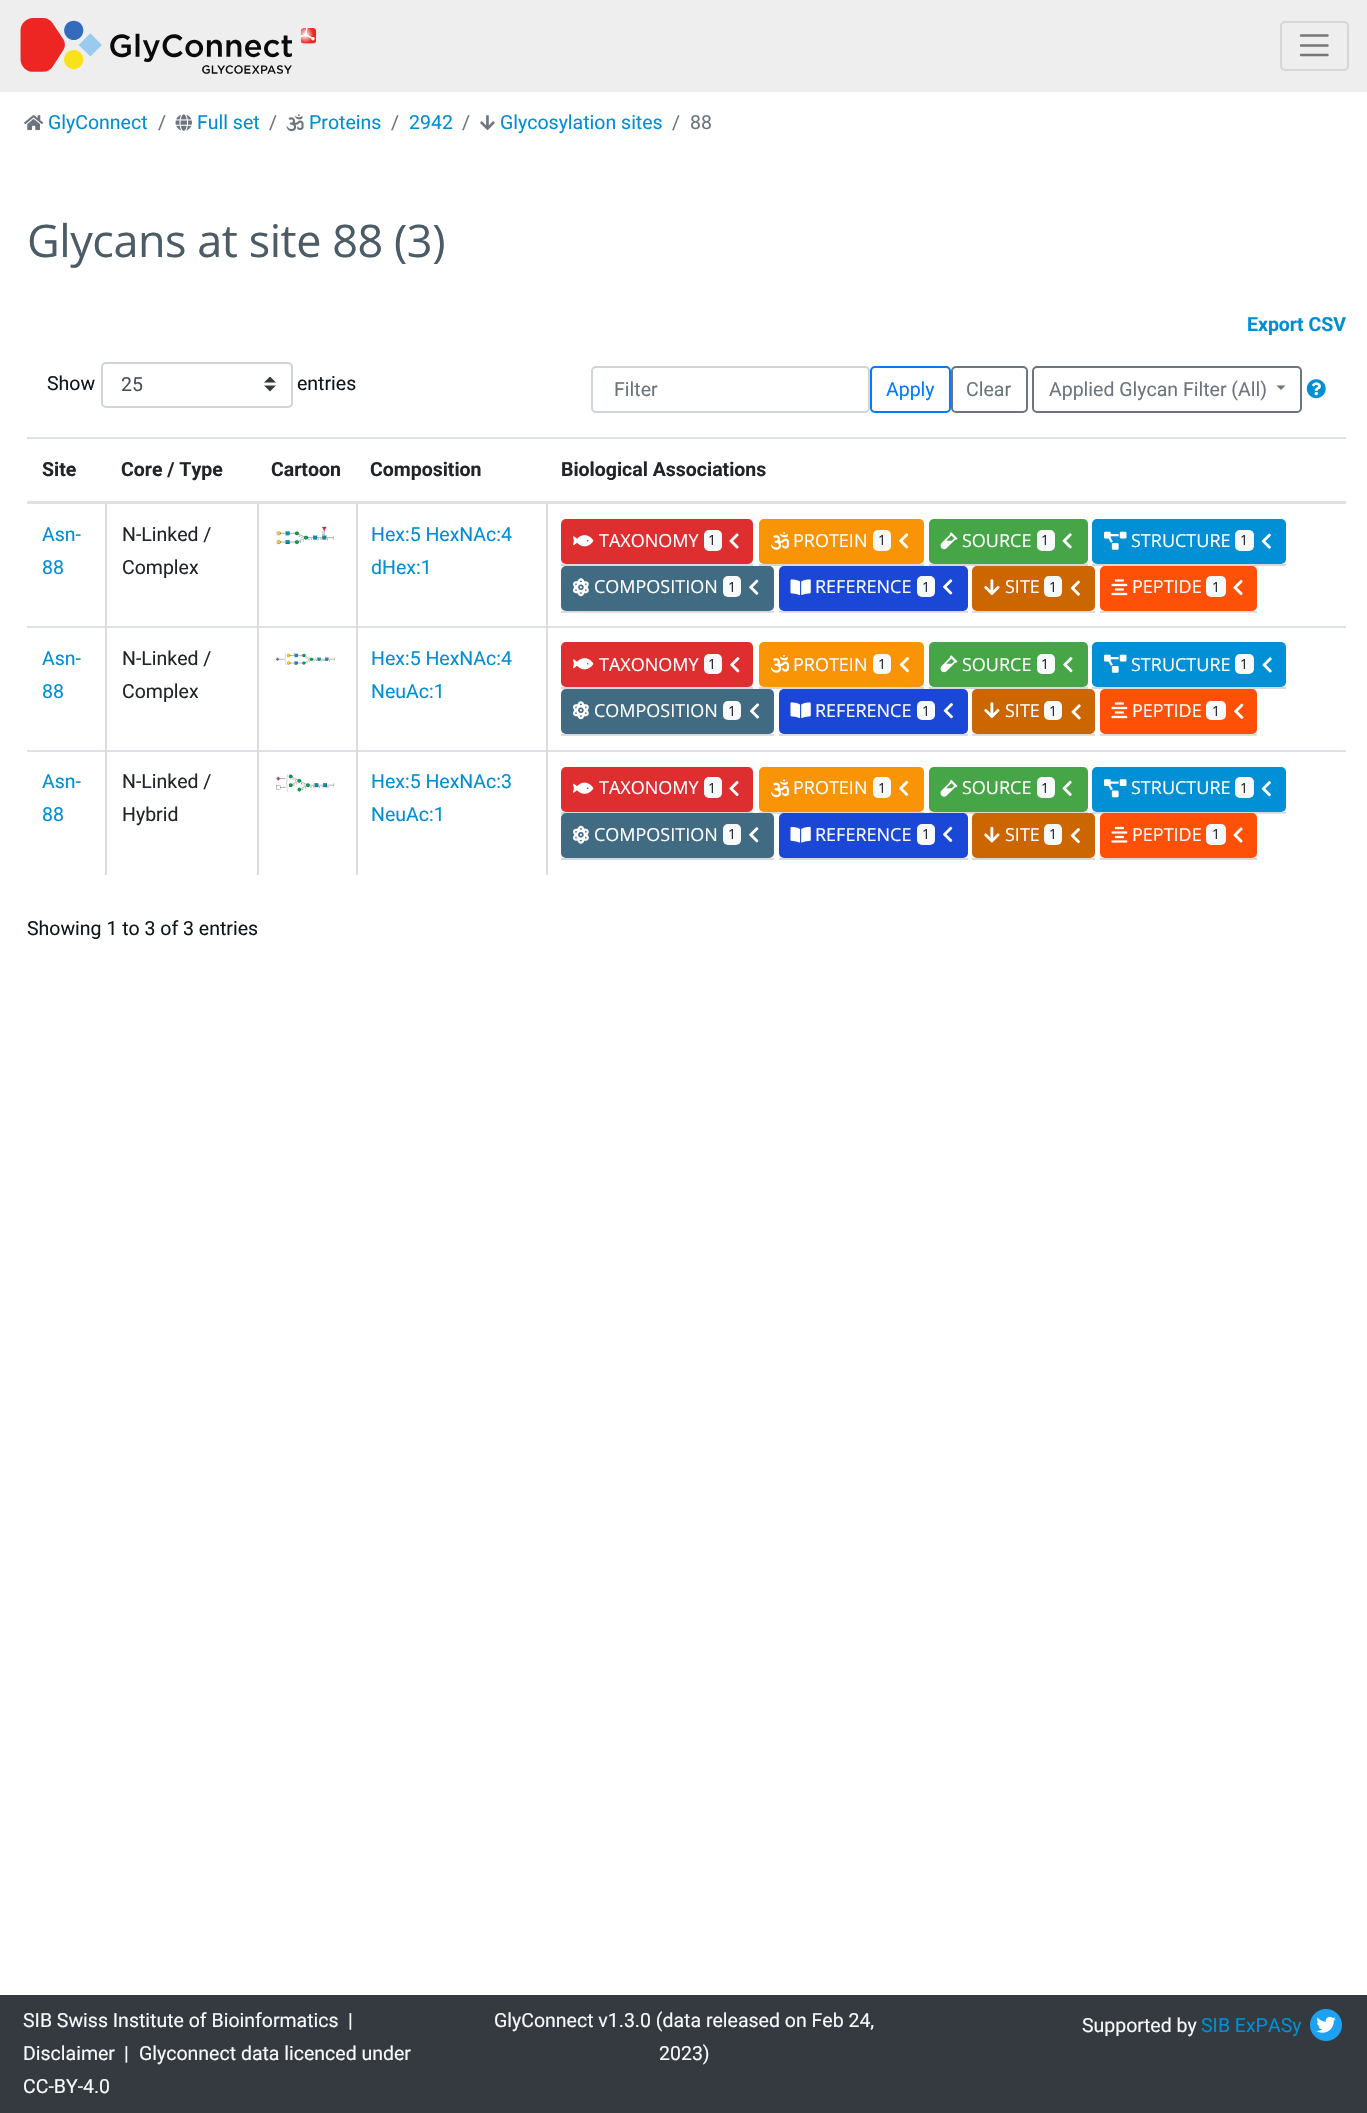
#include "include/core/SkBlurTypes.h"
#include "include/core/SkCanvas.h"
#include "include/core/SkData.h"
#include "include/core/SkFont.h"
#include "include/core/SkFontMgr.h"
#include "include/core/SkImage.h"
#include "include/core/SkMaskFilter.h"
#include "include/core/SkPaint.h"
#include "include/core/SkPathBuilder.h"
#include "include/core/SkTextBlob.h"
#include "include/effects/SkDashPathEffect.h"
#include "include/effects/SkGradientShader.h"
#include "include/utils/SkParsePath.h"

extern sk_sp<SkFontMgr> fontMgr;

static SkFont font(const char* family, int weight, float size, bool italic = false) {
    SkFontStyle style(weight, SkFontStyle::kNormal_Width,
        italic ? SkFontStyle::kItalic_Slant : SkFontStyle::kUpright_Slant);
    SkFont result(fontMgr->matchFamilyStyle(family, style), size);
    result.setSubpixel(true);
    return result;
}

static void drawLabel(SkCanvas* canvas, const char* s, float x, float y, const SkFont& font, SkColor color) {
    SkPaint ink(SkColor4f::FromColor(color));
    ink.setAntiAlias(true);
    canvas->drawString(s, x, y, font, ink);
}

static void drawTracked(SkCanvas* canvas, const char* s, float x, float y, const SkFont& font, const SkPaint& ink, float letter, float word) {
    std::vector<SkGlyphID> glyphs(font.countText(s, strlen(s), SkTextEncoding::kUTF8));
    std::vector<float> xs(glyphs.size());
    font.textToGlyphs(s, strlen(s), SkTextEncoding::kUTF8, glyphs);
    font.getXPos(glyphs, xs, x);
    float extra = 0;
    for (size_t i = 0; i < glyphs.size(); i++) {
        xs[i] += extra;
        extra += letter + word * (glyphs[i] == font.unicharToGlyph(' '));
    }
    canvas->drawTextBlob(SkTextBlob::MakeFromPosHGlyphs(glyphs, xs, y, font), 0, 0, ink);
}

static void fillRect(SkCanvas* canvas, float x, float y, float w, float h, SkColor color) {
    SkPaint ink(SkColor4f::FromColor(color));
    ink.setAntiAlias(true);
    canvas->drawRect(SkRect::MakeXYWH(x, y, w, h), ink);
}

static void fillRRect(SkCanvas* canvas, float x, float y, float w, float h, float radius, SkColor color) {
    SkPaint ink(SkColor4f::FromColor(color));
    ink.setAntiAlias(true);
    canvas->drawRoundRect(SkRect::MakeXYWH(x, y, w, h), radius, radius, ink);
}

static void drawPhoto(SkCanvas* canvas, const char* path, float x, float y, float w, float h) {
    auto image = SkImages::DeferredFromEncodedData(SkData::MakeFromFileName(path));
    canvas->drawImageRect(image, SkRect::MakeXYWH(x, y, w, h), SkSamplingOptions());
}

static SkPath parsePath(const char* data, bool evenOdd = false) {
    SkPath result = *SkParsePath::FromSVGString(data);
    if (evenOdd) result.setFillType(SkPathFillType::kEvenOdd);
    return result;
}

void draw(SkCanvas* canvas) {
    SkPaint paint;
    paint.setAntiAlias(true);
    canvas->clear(0xFFFFFFFF);
    fillRect(canvas, 1092, 813, 194, 1, 0xFFE0E0E0);
    fillRect(canvas, 963, 813, 14, 1, 0xFFE0E0E0);
    fillRect(canvas, 769, 813, 15, 1, 0xFFE0E0E0);
    fillRect(canvas, 561, 813, 5, 1, 0xFFE0E0E0);
    fillRect(canvas, 1100, 735, 157, 1, 0xFFE0E0E0);
    fillRect(canvas, 972, 735, 123, 1, 0xFFE0E0E0);
    fillRect(canvas, 779, 735, 189, 1, 0xFFE0E0E0);
    fillRect(canvas, 561, 735, 213, 1, 0xFFE0E0E0);
    fillRect(canvas, 1100, 612, 157, 1, 0xFFE0E0E0);
    fillRect(canvas, 972, 612, 123, 1, 0xFFE0E0E0);
    fillRect(canvas, 779, 612, 189, 1, 0xFFE0E0E0);
    fillRect(canvas, 561, 612, 213, 1, 0xFFE0E0E0);
    fillRect(canvas, 0, 0, 1367, 92, 0xFFEEEEEE);
    drawPhoto(canvas, "assets/img1.png", 20, 18, 297, 56);
    paint.setStroke(true);
    paint.setStrokeWidth(2);
    paint.setColor(0xFFD6D6D6);
    canvas->drawRoundRect(SkRect::MakeXYWH(1281, 22, 67, 48), 4, 4, paint);
    paint.setStrokeWidth(2.4f);
    paint.setStrokeCap(SkPaint::kRound_Cap);
    paint.setColor(0xFF777777);
    canvas->drawPath(parsePath("M1301 35.5H1327.5M1301 45.5H1327.5M1301 55H1327.5"), paint);
    drawPhoto(canvas, "assets/img2.png", 24, 115, 20, 16);
    SkFont font1 = font("Roboto", 400, 19.5f);
    drawLabel(canvas, "GlyConnect", 48, 129, font1, 0xFF008FD5);
    drawLabel(canvas, "/", 158, 129, font1, 0xFF6C757D);
    drawPhoto(canvas, "assets/img3.png", 175, 114, 17, 17);
    drawLabel(canvas, "Full set", 197, 129, font1, 0xFF008FD5);
    drawLabel(canvas, "/", 269, 129, font1, 0xFF6C757D);
    drawPhoto(canvas, "assets/img4.png", 286, 114, 18, 18);
    drawLabel(canvas, "Proteins", 309, 129, font1, 0xFF008FD5);
    drawLabel(canvas, "/", 391, 129, font1, 0xFF6C757D);
    drawLabel(canvas, "2942", 409, 129, font1, 0xFF008FD5);
    drawLabel(canvas, "/", 462, 129, font1, 0xFF6C757D);
    drawPhoto(canvas, "assets/img5.png", 480, 115, 15, 15);
    drawLabel(canvas, "Glycosylation sites", 500, 129, font1, 0xFF008FD5);
    drawLabel(canvas, "/", 672, 129, font1, 0xFF6C757D);
    drawLabel(canvas, "88", 690, 129, font1, 0xFF6C757D);
    SkFont font2 = font("Open Sans", 400, 45);
    paint.setStroke(false);
    paint.setColor(0xFF4B5C66);
    drawTracked(canvas, "Glycans at site 88 (3)", 27, 257, font2, paint, -0.45f, 0);
    SkFont font3 = font("Roboto", 700, 19.5f);
    drawLabel(canvas, "Export CSV", 1247, 331, font3, 0xFF008FD5);
    drawLabel(canvas, "Show", 47, 390, font1, 0xFF0C171E);
    drawPhoto(canvas, "assets/img6.png", 264, 377, 12, 15);
    paint.setStroke(true);
    paint.setStrokeWidth(2);
    paint.setStrokeCap(SkPaint::kButt_Cap);
    paint.setColor(0xFFCED4DA);
    canvas->drawRoundRect(SkRect::MakeXYWH(102, 363, 190, 44), 4, 4, paint);
    drawLabel(canvas, "25", 121, 391, font1, 0xFF495057);
    drawLabel(canvas, "entries", 297, 390, font1, 0xFF0C171E);
    canvas->drawRoundRect(SkRect::MakeXYWH(592, 367, 277, 45), 4, 4, paint);
    drawLabel(canvas, "Filter", 614, 396, font1, 0xFF6C757D);
    paint.setColor(0xFF007BFF);
    canvas->drawRoundRect(SkRect::MakeXYWH(871, 367, 79, 45), 4, 4, paint);
    drawLabel(canvas, "Apply", 886, 396, font1, 0xFF007BFF);
    paint.setColor(0xFF6C757D);
    canvas->drawRoundRect(SkRect::MakeXYWH(952, 367, 75, 45), 4, 4, paint);
    drawLabel(canvas, "Clear", 966, 396, font1, 0xFF6C757D);
    canvas->drawRoundRect(SkRect::MakeXYWH(1033, 367, 268, 45), 4, 4, paint);
    drawLabel(canvas, "Applied Glycan Filter (All)", 1049, 396, font1, 0xFF6C757D);
    paint.setStroke(false);
    canvas->drawPath(parsePath("M1276.5 385.5H1285.5L1281 390Z"), paint);
    drawPhoto(canvas, "assets/img7.png", 1306, 379, 20, 20);
    drawLabel(canvas, "Site", 42, 476, font3, 0xFF212529);
    drawLabel(canvas, "Core / Type", 121, 476, font3, 0xFF212529);
    drawLabel(canvas, "Cartoon", 271, 476, font3, 0xFF212529);
    drawLabel(canvas, "Composition", 370, 476, font3, 0xFF212529);
    fillRect(canvas, 27, 437, 1319, 2, 0xFFDEE2E6);
    fillRect(canvas, 546, 626, 800, 2, 0xFFDEE2E6);
    fillRect(canvas, 546, 750, 800, 2, 0xFFDEE2E6);
    fillRect(canvas, 546, 750, 2, 125, 0xFFDDDDDD);
    fillRect(canvas, 356, 750, 192, 2, 0xFFDEE2E6);
    fillRect(canvas, 546, 626, 2, 126, 0xFFDDDDDD);
    fillRect(canvas, 356, 626, 192, 2, 0xFFDEE2E6);
    fillRect(canvas, 356, 750, 2, 125, 0xFFDDDDDD);
    fillRect(canvas, 257, 750, 100, 2, 0xFFDEE2E6);
    fillRect(canvas, 356, 626, 2, 126, 0xFFDDDDDD);
    fillRect(canvas, 257, 626, 100, 2, 0xFFDEE2E6);
    fillRect(canvas, 257, 750, 2, 125, 0xFFDDDDDD);
    fillRect(canvas, 105, 750, 153, 2, 0xFFDEE2E6);
    fillRect(canvas, 257, 626, 2, 126, 0xFFDDDDDD);
    fillRect(canvas, 105, 626, 153, 2, 0xFFDEE2E6);
    fillRect(canvas, 105, 750, 2, 125, 0xFFDDDDDD);
    fillRect(canvas, 27, 750, 80, 2, 0xFFDEE2E6);
    fillRect(canvas, 105, 626, 2, 126, 0xFFDDDDDD);
    fillRect(canvas, 27, 626, 80, 2, 0xFFDEE2E6);
    fillRect(canvas, 105, 501, 2, 126, 0xFFDDDDDD);
    fillRect(canvas, 257, 501, 2, 126, 0xFFDDDDDD);
    fillRect(canvas, 356, 501, 2, 126, 0xFFDDDDDD);
    fillRect(canvas, 546, 501, 2, 126, 0xFFDDDDDD);
    fillRect(canvas, 27, 501, 1319, 3, 0xFFDEE2E6);
    drawLabel(canvas, "Biological Associations", 561, 476, font3, 0xFF212529);
    drawLabel(canvas, "Asn-", 42, 541, font1, 0xFF008FD5);
    drawLabel(canvas, "88", 42, 574, font1, 0xFF008FD5);
    drawLabel(canvas, "N-Linked /", 122, 541, font1, 0xFF212529);
    drawLabel(canvas, "Complex", 122, 574, font1, 0xFF212529);
    drawPhoto(canvas, "assets/img8.png", 276, 526, 58, 19);
    drawLabel(canvas, "Hex:5 HexNAc:4", 371, 541, font1, 0xFF008FD5);
    drawLabel(canvas, "dHex:1", 371, 574, font1, 0xFF008FD5);
    paint.setColor(0xFFF7F7F7);
    canvas->drawPath(parsePath("M564 519H750C751.5 519 753 520.5 753 522V566H561V522C561 520.5 562.5 519 564 519Z"), paint);
    fillRect(canvas, 561, 564, 192, 2, 0xFFD8D8D8);
    fillRRect(canvas, 561, 519, 192, 45, 5, 0xFFDF2E30);
    drawPhoto(canvas, "assets/img9.png", 573, 535, 21, 12);
    SkFont font4 = font("Open Sans", 400, 18);
    drawLabel(canvas, "TAXONOMY", 599, 547, font4, 0xFFFFFFFF);
    fillRRect(canvas, 704, 530, 18, 21, 5, 0xFFF8F9FA);
    SkFont font5 = font("Open Sans", 400, 14);
    drawLabel(canvas, "1", 708, 545, font5, 0xFF212529);
    drawPhoto(canvas, "assets/img10.png", 729, 533, 10, 16);
    canvas->drawPath(parsePath("M762 519H921C922.5 519 924 520.5 924 522V566H759V522C759 520.5 760.5 519 762 519Z"), paint);
    fillRect(canvas, 759, 564, 165, 2, 0xFFD8D8D8);
    fillRRect(canvas, 759, 519, 165, 45, 5, 0xFFF89406);
    drawPhoto(canvas, "assets/img11.png", 771, 531, 19, 19);
    drawLabel(canvas, "PROTEIN", 793, 547, font4, 0xFFFFFFFF);
    fillRRect(canvas, 873, 530, 18, 21, 5, 0xFFF8F9FA);
    drawLabel(canvas, "1", 878, 545, font5, 0xFF212529);
    drawPhoto(canvas, "assets/img12.png", 899, 533, 10, 16);
    canvas->drawPath(parsePath("M932 519H1085C1086.5 519 1088 520.5 1088 522V566H929V522C929 520.5 930.5 519 932 519Z"), paint);
    fillRect(canvas, 929, 564, 159, 2, 0xFFD8D8D8);
    fillRRect(canvas, 929, 519, 159, 45, 5, 0xFF46A546);
    drawPhoto(canvas, "assets/img13.png", 940, 532, 18, 18);
    drawLabel(canvas, "SOURCE", 962, 547, font4, 0xFFFFFFFF);
    fillRRect(canvas, 1037, 530, 18, 21, 5, 0xFFF8F9FA);
    drawLabel(canvas, "1", 1041, 545, font5, 0xFF212529);
    drawPhoto(canvas, "assets/img14.png", 1062, 533, 10, 16);
    canvas->drawPath(parsePath("M1095 519H1283C1284.5 519 1286 520.5 1286 522V566H1092V522C1092 520.5 1093.5 519 1095 519Z"), paint);
    fillRect(canvas, 1092, 564, 194, 2, 0xFFD8D8D8);
    fillRRect(canvas, 1092, 519, 194, 45, 5, 0xFF018FD5);
    drawPhoto(canvas, "assets/img15.png", 1104, 531, 23, 19);
    drawLabel(canvas, "STRUCTURE", 1131, 547, font4, 0xFFFFFFFF);
    fillRRect(canvas, 1235, 530, 19, 21, 5, 0xFFF8F9FA);
    drawLabel(canvas, "1", 1240, 545, font5, 0xFF212529);
    drawPhoto(canvas, "assets/img16.png", 1261, 533, 10, 16);
    canvas->drawPath(parsePath("M564 566H771C772.5 566 774 567.5 774 569V612H561V569C561 567.5 562.5 566 564 566Z"), paint);
    fillRect(canvas, 561, 611, 213, 1, 0xFFD9D9D9);
    fillRRect(canvas, 561, 566, 213, 45, 5, 0xFF406B83);
    drawPhoto(canvas, "assets/img17.png", 573, 578, 16, 19);
    drawLabel(canvas, "COMPOSITION", 594, 593, font4, 0xFFFFFFFF);
    fillRRect(canvas, 723, 576, 18, 21, 5, 0xFFF8F9FA);
    drawLabel(canvas, "1", 728, 592, font5, 0xFF212529);
    drawPhoto(canvas, "assets/img18.png", 749, 579, 10, 16);
    canvas->drawPath(parsePath("M782 566H965C966.5 566 968 567.5 968 569V612H779V569C779 567.5 780.5 566 782 566Z"), paint);
    fillRect(canvas, 779, 611, 189, 1, 0xFFD9D9D9);
    fillRRect(canvas, 779, 566, 189, 45, 5, 0xFF1A47D5);
    drawPhoto(canvas, "assets/img19.png", 790, 579, 21, 17);
    drawLabel(canvas, "REFERENCE", 815, 593, font4, 0xFFFFFFFF);
    fillRRect(canvas, 917, 576, 18, 21, 5, 0xFFF8F9FA);
    drawLabel(canvas, "1", 922, 592, font5, 0xFF212529);
    drawPhoto(canvas, "assets/img20.png", 943, 579, 10, 16);
    canvas->drawPath(parsePath("M975 566H1092C1093.5 566 1095 567.5 1095 569V612H972V569C972 567.5 973.5 566 975 566Z"), paint);
    fillRect(canvas, 972, 611, 123, 1, 0xFFD9D9D9);
    fillRRect(canvas, 972, 566, 123, 45, 5, 0xFFCC6600);
    drawPhoto(canvas, "assets/img21.png", 984, 579, 16, 17);
    drawLabel(canvas, "SITE", 1005, 593, font4, 0xFFFFFFFF);
    fillRRect(canvas, 1044, 576, 18, 21, 5, 0xFFF8F9FA);
    drawLabel(canvas, "1", 1049, 592, font5, 0xFF212529);
    drawPhoto(canvas, "assets/img22.png", 1070, 580, 10, 16);
    canvas->drawPath(parsePath("M1103 566H1254C1255.5 566 1257 567.5 1257 569V612H1100V569C1100 567.5 1101.5 566 1103 566Z"), paint);
    fillRect(canvas, 1100, 611, 157, 1, 0xFFD9D9D9);
    fillRRect(canvas, 1100, 566, 157, 45, 5, 0xFFFE5006);
    drawPhoto(canvas, "assets/img23.png", 1111, 579, 17, 17);
    drawLabel(canvas, "PEPTIDE", 1132, 593, font4, 0xFFFFFFFF);
    fillRRect(canvas, 1206, 576, 20, 21, 5, 0xFFF8F9FA);
    drawLabel(canvas, "1", 1212, 592, font5, 0xFF212529);
    drawPhoto(canvas, "assets/img24.png", 1233, 579, 10, 17);
    drawLabel(canvas, "Asn-", 42, 665, font1, 0xFF008FD5);
    drawLabel(canvas, "88", 42, 698, font1, 0xFF008FD5);
    drawLabel(canvas, "N-Linked /", 122, 665, font1, 0xFF212529);
    drawLabel(canvas, "Complex", 122, 698, font1, 0xFF212529);
    drawPhoto(canvas, "assets/img25.png", 275, 653, 61, 12);
    drawLabel(canvas, "Hex:5 HexNAc:4", 371, 665, font1, 0xFF008FD5);
    drawLabel(canvas, "NeuAc:1", 371, 698, font1, 0xFF008FD5);
    canvas->drawPath(parsePath("M564 642H750C751.5 642 753 643.5 753 645V689H561V645C561 643.5 562.5 642 564 642Z"), paint);
    fillRect(canvas, 561, 687, 192, 2, 0xFFD8D8D8);
    fillRRect(canvas, 561, 642, 192, 45, 5, 0xFFDF2E30);
    drawPhoto(canvas, "assets/img9.png", 573, 658, 21, 12);
    drawLabel(canvas, "TAXONOMY", 599, 671, font4, 0xFFFFFFFF);
    fillRRect(canvas, 704, 654, 18, 20, 5, 0xFFF8F9FA);
    drawLabel(canvas, "1", 708, 669, font5, 0xFF212529);
    drawPhoto(canvas, "assets/img26.png", 730, 657, 10, 16);
    canvas->drawPath(parsePath("M762 642H921C922.5 642 924 643.5 924 645V689H759V645C759 643.5 760.5 642 762 642Z"), paint);
    fillRect(canvas, 759, 687, 165, 2, 0xFFD8D8D8);
    fillRRect(canvas, 759, 642, 165, 45, 5, 0xFFF89406);
    drawPhoto(canvas, "assets/img11.png", 771, 654, 19, 19);
    drawLabel(canvas, "PROTEIN", 793, 671, font4, 0xFFFFFFFF);
    fillRRect(canvas, 873, 654, 18, 20, 5, 0xFFF8F9FA);
    drawLabel(canvas, "1", 878, 669, font5, 0xFF212529);
    drawPhoto(canvas, "assets/img27.png", 899, 657, 10, 16);
    canvas->drawPath(parsePath("M932 642H1085C1086.5 642 1088 643.5 1088 645V689H929V645C929 643.5 930.5 642 932 642Z"), paint);
    fillRect(canvas, 929, 687, 159, 2, 0xFFD8D8D8);
    fillRRect(canvas, 929, 642, 159, 45, 5, 0xFF46A546);
    drawPhoto(canvas, "assets/img13.png", 940, 655, 18, 18);
    drawLabel(canvas, "SOURCE", 962, 671, font4, 0xFFFFFFFF);
    fillRRect(canvas, 1037, 654, 18, 20, 5, 0xFFF8F9FA);
    drawLabel(canvas, "1", 1041, 669, font5, 0xFF212529);
    drawPhoto(canvas, "assets/img28.png", 1063, 657, 10, 16);
    canvas->drawPath(parsePath("M1095 642H1283C1284.5 642 1286 643.5 1286 645V689H1092V645C1092 643.5 1093.5 642 1095 642Z"), paint);
    fillRect(canvas, 1092, 687, 194, 2, 0xFFD8D8D8);
    fillRRect(canvas, 1092, 642, 194, 45, 5, 0xFF018FD5);
    drawPhoto(canvas, "assets/img15.png", 1104, 654, 23, 19);
    drawLabel(canvas, "STRUCTURE", 1131, 671, font4, 0xFFFFFFFF);
    fillRRect(canvas, 1235, 654, 19, 20, 5, 0xFFF8F9FA);
    drawLabel(canvas, "1", 1240, 669, font5, 0xFF212529);
    drawPhoto(canvas, "assets/img29.png", 1262, 657, 10, 16);
    canvas->drawPath(parsePath("M564 689H771C772.5 689 774 690.5 774 692V735H561V692C561 690.5 562.5 689 564 689Z"), paint);
    fillRect(canvas, 561, 734, 213, 1, 0xFFD9D9D9);
    fillRRect(canvas, 561, 689, 213, 45, 5, 0xFF406B83);
    drawPhoto(canvas, "assets/img17.png", 573, 701, 16, 19);
    drawLabel(canvas, "COMPOSITION", 594, 717, font4, 0xFFFFFFFF);
    fillRRect(canvas, 723, 701, 18, 19, 5, 0xFFF8F9FA);
    drawLabel(canvas, "1", 728, 716, font5, 0xFF212529);
    drawPhoto(canvas, "assets/img30.png", 749, 703, 11, 16);
    canvas->drawPath(parsePath("M782 689H965C966.5 689 968 690.5 968 692V735H779V692C779 690.5 780.5 689 782 689Z"), paint);
    fillRect(canvas, 779, 734, 189, 1, 0xFFD9D9D9);
    fillRRect(canvas, 779, 689, 189, 45, 5, 0xFF1A47D5);
    drawPhoto(canvas, "assets/img19.png", 790, 702, 21, 17);
    drawLabel(canvas, "REFERENCE", 815, 717, font4, 0xFFFFFFFF);
    fillRRect(canvas, 917, 701, 18, 19, 5, 0xFFF8F9FA);
    drawLabel(canvas, "1", 922, 716, font5, 0xFF212529);
    drawPhoto(canvas, "assets/img31.png", 943, 703, 10, 16);
    canvas->drawPath(parsePath("M975 689H1092C1093.5 689 1095 690.5 1095 692V735H972V692C972 690.5 973.5 689 975 689Z"), paint);
    fillRect(canvas, 972, 734, 123, 1, 0xFFD9D9D9);
    fillRRect(canvas, 972, 689, 123, 45, 5, 0xFFCC6600);
    drawPhoto(canvas, "assets/img21.png", 984, 702, 16, 17);
    drawLabel(canvas, "SITE", 1005, 717, font4, 0xFFFFFFFF);
    fillRRect(canvas, 1044, 701, 18, 19, 5, 0xFFF8F9FA);
    drawLabel(canvas, "1", 1049, 716, font5, 0xFF212529);
    drawPhoto(canvas, "assets/img32.png", 1071, 704, 10, 16);
    canvas->drawPath(parsePath("M1103 689H1254C1255.5 689 1257 690.5 1257 692V735H1100V692C1100 690.5 1101.5 689 1103 689Z"), paint);
    fillRect(canvas, 1100, 734, 157, 1, 0xFFD9D9D9);
    fillRRect(canvas, 1100, 689, 157, 45, 5, 0xFFFE5006);
    drawPhoto(canvas, "assets/img23.png", 1111, 702, 17, 17);
    drawLabel(canvas, "PEPTIDE", 1132, 717, font4, 0xFFFFFFFF);
    fillRRect(canvas, 1206, 701, 20, 19, 5, 0xFFF8F9FA);
    drawLabel(canvas, "1", 1212, 716, font5, 0xFF212529);
    drawPhoto(canvas, "assets/img33.png", 1234, 703, 10, 16);
    drawLabel(canvas, "Asn-", 42, 788, font1, 0xFF008FD5);
    drawLabel(canvas, "88", 42, 821, font1, 0xFF008FD5);
    drawLabel(canvas, "N-Linked /", 122, 788, font1, 0xFF212529);
    drawLabel(canvas, "Hybrid", 122, 821, font1, 0xFF212529);
    drawPhoto(canvas, "assets/img34.png", 275, 774, 60, 18);
    drawLabel(canvas, "Hex:5 HexNAc:3", 371, 788, font1, 0xFF008FD5);
    drawLabel(canvas, "NeuAc:1", 371, 821, font1, 0xFF008FD5);
    canvas->drawPath(parsePath("M564 767H750C751.5 767 753 768.5 753 770V813H561V770C561 768.5 562.5 767 564 767Z"), paint);
    fillRect(canvas, 561, 812, 192, 1, 0xFFD9D9D9);
    fillRRect(canvas, 561, 767, 192, 45, 5, 0xFFDF2E30);
    drawPhoto(canvas, "assets/img35.png", 573, 782, 21, 12);
    drawLabel(canvas, "TAXONOMY", 599, 794, font4, 0xFFFFFFFF);
    fillRRect(canvas, 704, 777, 18, 21, 5, 0xFFF8F9FA);
    drawLabel(canvas, "1", 708, 793, font5, 0xFF212529);
    drawPhoto(canvas, "assets/img36.png", 729, 780, 10, 17);
    canvas->drawPath(parsePath("M762 767H921C922.5 767 924 768.5 924 770V813H759V770C759 768.5 760.5 767 762 767Z"), paint);
    fillRect(canvas, 759, 812, 165, 1, 0xFFD9D9D9);
    fillRRect(canvas, 759, 767, 165, 45, 5, 0xFFF89406);
    drawPhoto(canvas, "assets/img37.png", 771, 779, 19, 19);
    drawLabel(canvas, "PROTEIN", 793, 794, font4, 0xFFFFFFFF);
    fillRRect(canvas, 873, 777, 18, 21, 5, 0xFFF8F9FA);
    drawLabel(canvas, "1", 878, 793, font5, 0xFF212529);
    drawPhoto(canvas, "assets/img38.png", 899, 780, 10, 16);
    canvas->drawPath(parsePath("M932 767H1085C1086.5 767 1088 768.5 1088 770V813H929V770C929 768.5 930.5 767 932 767Z"), paint);
    fillRect(canvas, 929, 812, 159, 1, 0xFFD9D9D9);
    fillRRect(canvas, 929, 767, 159, 45, 5, 0xFF46A546);
    drawPhoto(canvas, "assets/img39.png", 940, 779, 18, 18);
    drawLabel(canvas, "SOURCE", 962, 794, font4, 0xFFFFFFFF);
    fillRRect(canvas, 1037, 777, 18, 21, 5, 0xFFF8F9FA);
    drawLabel(canvas, "1", 1041, 793, font5, 0xFF212529);
    drawPhoto(canvas, "assets/img40.png", 1062, 780, 10, 16);
    canvas->drawPath(parsePath("M1095 767H1283C1284.5 767 1286 768.5 1286 770V813H1092V770C1092 768.5 1093.5 767 1095 767Z"), paint);
    fillRect(canvas, 1092, 812, 194, 1, 0xFFD9D9D9);
    fillRRect(canvas, 1092, 767, 194, 45, 5, 0xFF018FD5);
    drawPhoto(canvas, "assets/img41.png", 1104, 779, 23, 19);
    drawLabel(canvas, "STRUCTURE", 1131, 794, font4, 0xFFFFFFFF);
    fillRRect(canvas, 1235, 777, 19, 21, 5, 0xFFF8F9FA);
    drawLabel(canvas, "1", 1240, 793, font5, 0xFF212529);
    drawPhoto(canvas, "assets/img42.png", 1261, 781, 10, 16);
    fillRRect(canvas, 561, 813, 213, 47, 5, 0xFFFFFFFF);
    fillRect(canvas, 561, 813, 213, 45, 0x08000000);
    fillRect(canvas, 561, 858, 213, 2, 0xFFD8D8D8);
    fillRRect(canvas, 561, 813, 213, 45, 5, 0xFF406B83);
    drawPhoto(canvas, "assets/img43.png", 573, 825, 16, 19);
    drawLabel(canvas, "COMPOSITION", 594, 841, font4, 0xFFFFFFFF);
    fillRRect(canvas, 723, 824, 18, 21, 5, 0xFFF8F9FA);
    drawLabel(canvas, "1", 728, 839, font5, 0xFF212529);
    drawPhoto(canvas, "assets/img44.png", 749, 827, 10, 16);
    fillRRect(canvas, 779, 813, 189, 47, 5, 0xFFFFFFFF);
    fillRect(canvas, 779, 813, 189, 45, 0x08000000);
    fillRect(canvas, 779, 858, 189, 2, 0xFFD8D8D8);
    fillRRect(canvas, 779, 813, 189, 45, 5, 0xFF1A47D5);
    drawPhoto(canvas, "assets/img45.png", 790, 826, 21, 17);
    drawLabel(canvas, "REFERENCE", 815, 841, font4, 0xFFFFFFFF);
    fillRRect(canvas, 917, 824, 18, 21, 5, 0xFFF8F9FA);
    drawLabel(canvas, "1", 922, 839, font5, 0xFF212529);
    drawPhoto(canvas, "assets/img46.png", 943, 826, 10, 16);
    fillRRect(canvas, 972, 813, 123, 47, 5, 0xFFFFFFFF);
    fillRect(canvas, 972, 813, 123, 45, 0x08000000);
    fillRect(canvas, 972, 858, 123, 2, 0xFFD8D8D8);
    fillRRect(canvas, 972, 813, 123, 45, 5, 0xFFCC6600);
    drawPhoto(canvas, "assets/img47.png", 984, 826, 16, 17);
    drawLabel(canvas, "SITE", 1005, 841, font4, 0xFFFFFFFF);
    fillRRect(canvas, 1044, 824, 18, 21, 5, 0xFFF8F9FA);
    drawLabel(canvas, "1", 1049, 839, font5, 0xFF212529);
    drawPhoto(canvas, "assets/img48.png", 1070, 828, 10, 16);
    fillRRect(canvas, 1100, 813, 157, 47, 5, 0xFFFFFFFF);
    fillRect(canvas, 1100, 813, 157, 45, 0x08000000);
    fillRect(canvas, 1100, 858, 157, 2, 0xFFD8D8D8);
    fillRRect(canvas, 1100, 813, 157, 45, 5, 0xFFFE5006);
    drawPhoto(canvas, "assets/img49.png", 1111, 826, 17, 17);
    drawLabel(canvas, "PEPTIDE", 1132, 841, font4, 0xFFFFFFFF);
    fillRRect(canvas, 1206, 824, 20, 21, 5, 0xFFF8F9FA);
    drawLabel(canvas, "1", 1212, 839, font5, 0xFF212529);
    drawPhoto(canvas, "assets/img50.png", 1233, 827, 10, 16);
    drawLabel(canvas, "Showing 1 to 3 of 3 entries", 27, 935, font1, 0xFF0C171E);
    fillRect(canvas, 0, 1995, 1367, 118, 0xFF343A40);
    drawLabel(canvas, "SIB Swiss Institute of Bioinformatics", 23, 2027, font1, 0xFFF8F9FA);
    drawLabel(canvas, "|", 348, 2027, font1, 0xFFF8F9FA);
    drawLabel(canvas, "Disclaimer", 23, 2060, font1, 0xFFF8F9FA);
    drawLabel(canvas, "|", 124, 2060, font1, 0xFFF8F9FA);
    drawLabel(canvas, "Glyconnect data licenced under", 139, 2060, font1, 0xFFF8F9FA);
    drawLabel(canvas, "CC-BY-4.0", 23, 2093, font1, 0xFFF8F9FA);
    drawLabel(canvas, "GlyConnect v1.3.0 (data released on Feb 24,", 494, 2027, font1, 0xFFF8F9FA);
    drawLabel(canvas, "2023)", 659, 2060, font1, 0xFFF8F9FA);
    drawLabel(canvas, "Supported by", 1082, 2032, font1, 0xFFF8F9FA);
    drawLabel(canvas, "SIB ExPASy", 1201, 2032, font1, 0xFF008FD5);
    drawPhoto(canvas, "assets/img51.png", 1310, 2009, 32, 32);
}
